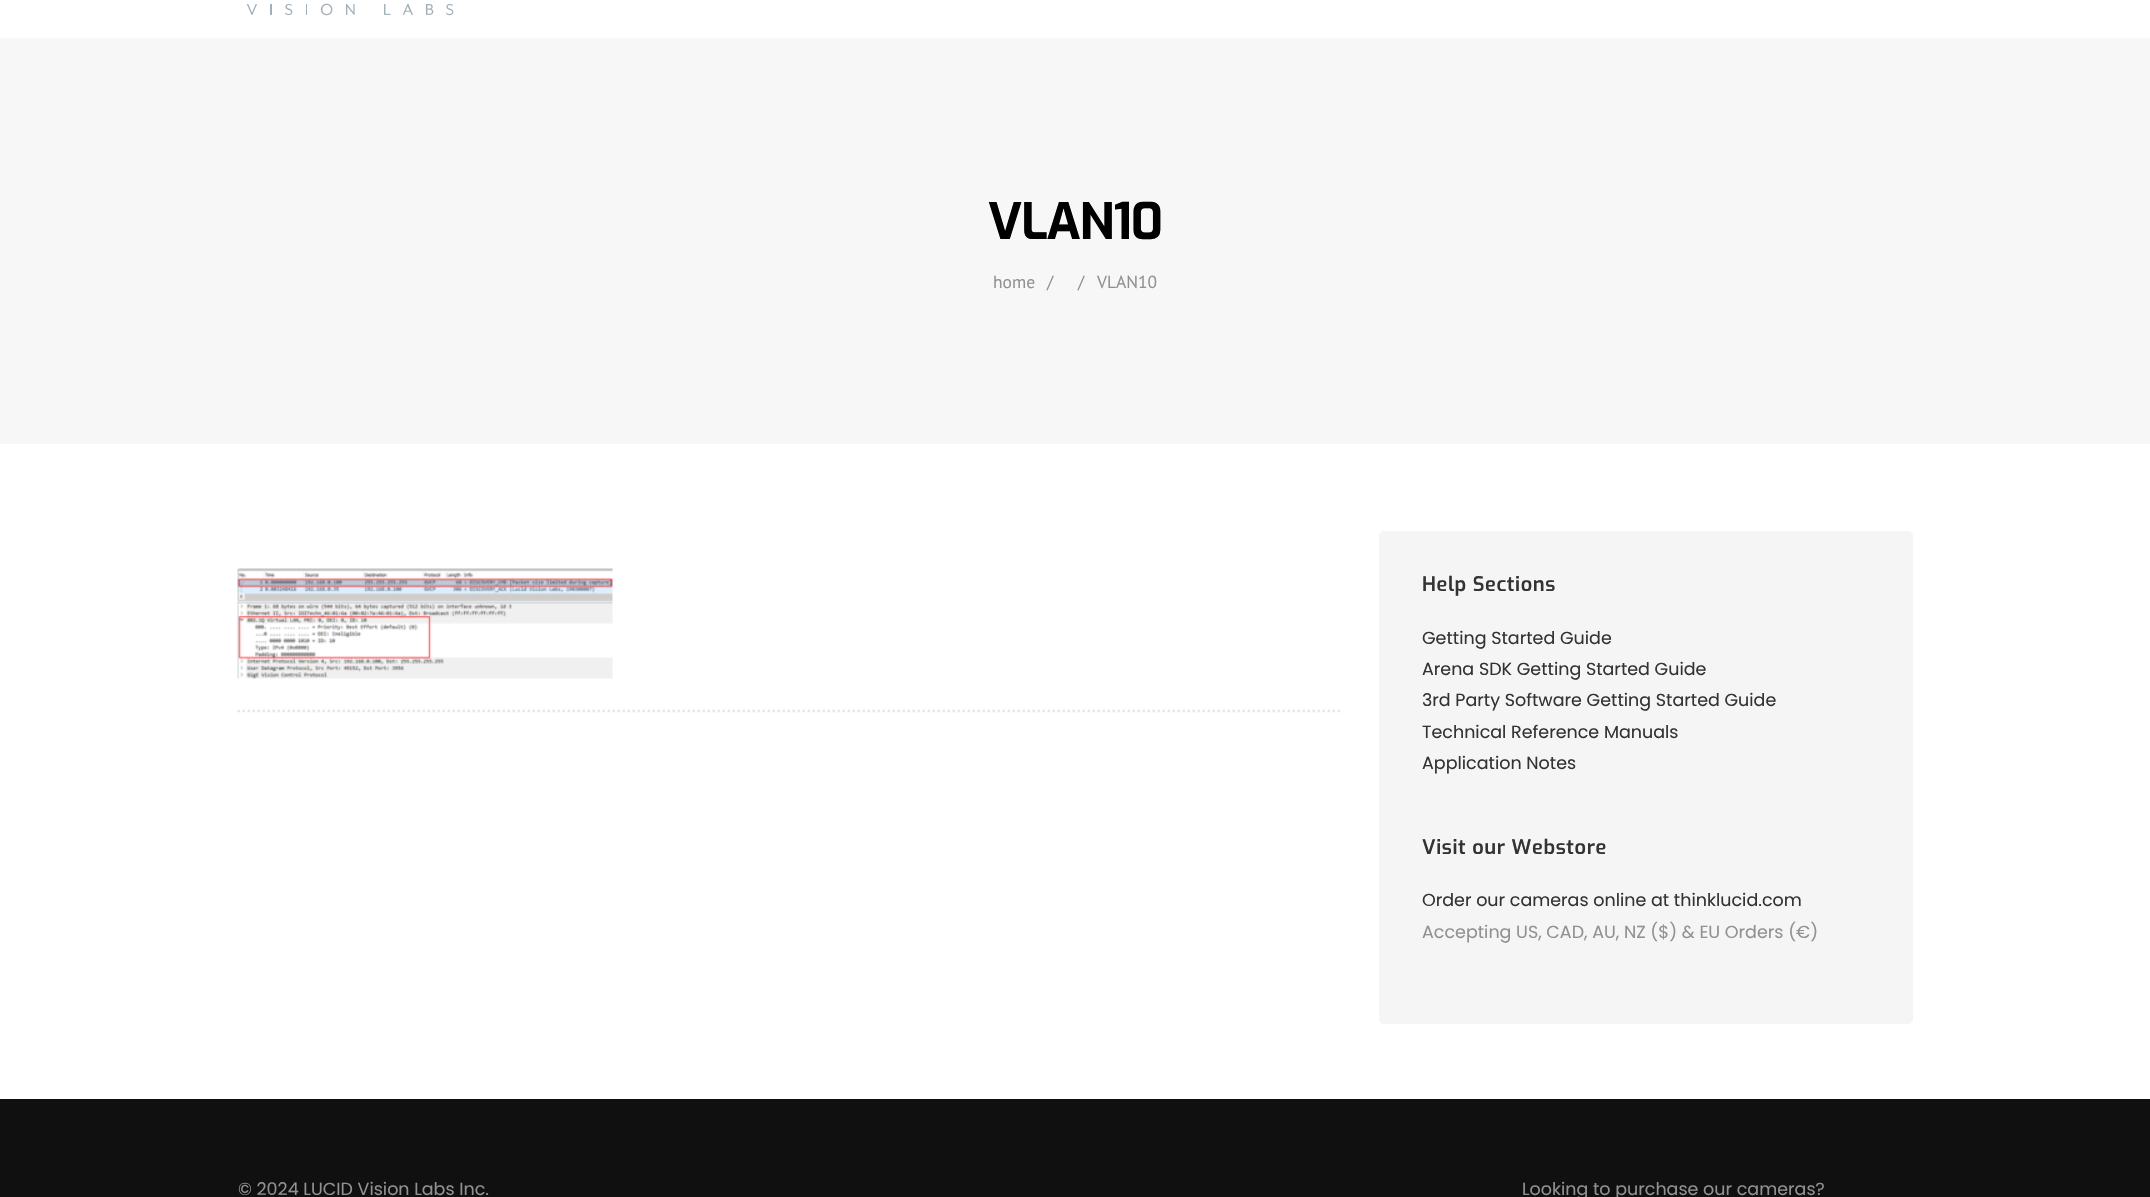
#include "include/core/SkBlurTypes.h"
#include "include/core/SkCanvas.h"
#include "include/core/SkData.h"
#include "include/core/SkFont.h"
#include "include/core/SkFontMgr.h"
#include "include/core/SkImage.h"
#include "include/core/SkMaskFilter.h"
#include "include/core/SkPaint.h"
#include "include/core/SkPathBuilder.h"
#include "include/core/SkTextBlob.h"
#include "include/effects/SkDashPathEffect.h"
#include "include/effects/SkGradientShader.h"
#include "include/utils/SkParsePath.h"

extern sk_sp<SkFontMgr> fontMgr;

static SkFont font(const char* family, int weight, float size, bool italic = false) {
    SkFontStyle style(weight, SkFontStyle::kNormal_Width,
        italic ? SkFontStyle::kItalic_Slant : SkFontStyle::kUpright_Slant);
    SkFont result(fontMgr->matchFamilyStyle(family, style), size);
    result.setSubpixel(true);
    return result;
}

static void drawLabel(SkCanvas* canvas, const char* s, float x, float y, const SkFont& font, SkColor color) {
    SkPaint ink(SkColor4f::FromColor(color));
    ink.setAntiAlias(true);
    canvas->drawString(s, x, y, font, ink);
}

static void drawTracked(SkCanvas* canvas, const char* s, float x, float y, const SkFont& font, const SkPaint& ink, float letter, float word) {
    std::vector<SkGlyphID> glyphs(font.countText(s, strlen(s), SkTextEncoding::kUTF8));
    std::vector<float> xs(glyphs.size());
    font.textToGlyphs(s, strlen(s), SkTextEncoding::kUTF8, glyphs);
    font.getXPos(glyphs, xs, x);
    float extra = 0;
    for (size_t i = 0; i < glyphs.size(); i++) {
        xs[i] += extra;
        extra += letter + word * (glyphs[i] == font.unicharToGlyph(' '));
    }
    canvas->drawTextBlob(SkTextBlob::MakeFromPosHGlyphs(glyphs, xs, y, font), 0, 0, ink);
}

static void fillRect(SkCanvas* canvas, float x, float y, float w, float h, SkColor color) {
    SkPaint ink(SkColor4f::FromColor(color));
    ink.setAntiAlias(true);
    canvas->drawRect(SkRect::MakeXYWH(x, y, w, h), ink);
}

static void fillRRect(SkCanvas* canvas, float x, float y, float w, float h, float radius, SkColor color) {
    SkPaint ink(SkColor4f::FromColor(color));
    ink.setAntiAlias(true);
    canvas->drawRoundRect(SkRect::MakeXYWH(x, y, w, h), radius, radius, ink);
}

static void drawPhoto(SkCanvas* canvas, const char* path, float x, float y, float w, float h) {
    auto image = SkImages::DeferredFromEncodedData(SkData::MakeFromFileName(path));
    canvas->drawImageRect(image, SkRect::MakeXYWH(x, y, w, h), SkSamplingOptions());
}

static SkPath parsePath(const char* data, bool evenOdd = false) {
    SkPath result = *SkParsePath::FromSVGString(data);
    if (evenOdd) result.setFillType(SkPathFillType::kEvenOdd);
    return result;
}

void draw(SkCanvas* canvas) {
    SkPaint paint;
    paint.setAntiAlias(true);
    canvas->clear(0xFFFFFFFF);
    drawPhoto(canvas, "assets/img1.png", 246, 3, 208, 13);
    fillRect(canvas, 0, 38, 2150, 406, 0xFFF7F7F7);
    SkFont font1 = font("Exo", 700, 50);
    paint.setColor(0xFF000000);
    drawTracked(canvas, "VLAN10", 988, 239, font1, paint, -1.25f, 0);
    SkFont font2 = font("PT Sans", 400, 17.5f);
    drawLabel(canvas, "home", 993, 288, font2, 0xFF919191);
    drawLabel(canvas, "/", 1047, 288, font2, 0xFF919191);
    drawLabel(canvas, "/", 1078, 288, font2, 0xFF919191);
    drawLabel(canvas, "VLAN10", 1097, 288, font2, 0xFF919191);
    paint.setStroke(true);
    paint.setStrokeWidth(2.5f);
    paint.setColor(0xFFE6E6E6);
    paint.setPathEffect(SkDashPathEffect::Make({{2.5f, 2.5f}}, 0));
    canvas->drawPath(parsePath("M237.5 711H1341"), paint);
    paint.setPathEffect(nullptr);
    drawPhoto(canvas, "assets/img2.png", 237, 568, 376, 111);
    fillRRect(canvas, 1379, 531, 534, 493, 5, 0xFFF5F5F5);
    SkFont font3 = font("Exo", 600, 20);
    paint.setStroke(false);
    paint.setColor(0xFF333333);
    drawTracked(canvas, "Help Sections", 1422, 591, font3, paint, 0.6f, 0);
    SkFont font4 = font("Poppins", 400, 17.5f);
    drawLabel(canvas, "Getting Started Guide", 1422, 644, font4, 0xFF333333);
    drawLabel(canvas, "Arena SDK Getting Started Guide", 1422, 675, font4, 0xFF333333);
    drawLabel(canvas, "3rd Party Software Getting Started Guide", 1422, 706, font4, 0xFF333333);
    drawLabel(canvas, "Technical Reference Manuals", 1422, 738, font4, 0xFF333333);
    drawLabel(canvas, "Application Notes", 1422, 769, font4, 0xFF333333);
    drawTracked(canvas, "Visit our Webstore", 1422, 854, font3, paint, 0.6f, 0);
    drawLabel(canvas, "Order our cameras online at thinklucid.com", 1422, 906, font4, 0xFF333333);
    drawLabel(canvas, "Accepting US, CAD, AU, NZ ($) & EU Orders (€)", 1422, 938, font4, 0xFF919191);
    fillRect(canvas, 0, 1099, 2150, 98, 0xFF101010);
    drawLabel(canvas, "© 2024 LUCID Vision Labs Inc.", 238, 1195, font4, 0xFF919191);
    drawLabel(canvas, "Looking to purchase our cameras?", 1522, 1195, font4, 0xFF919191);
}
